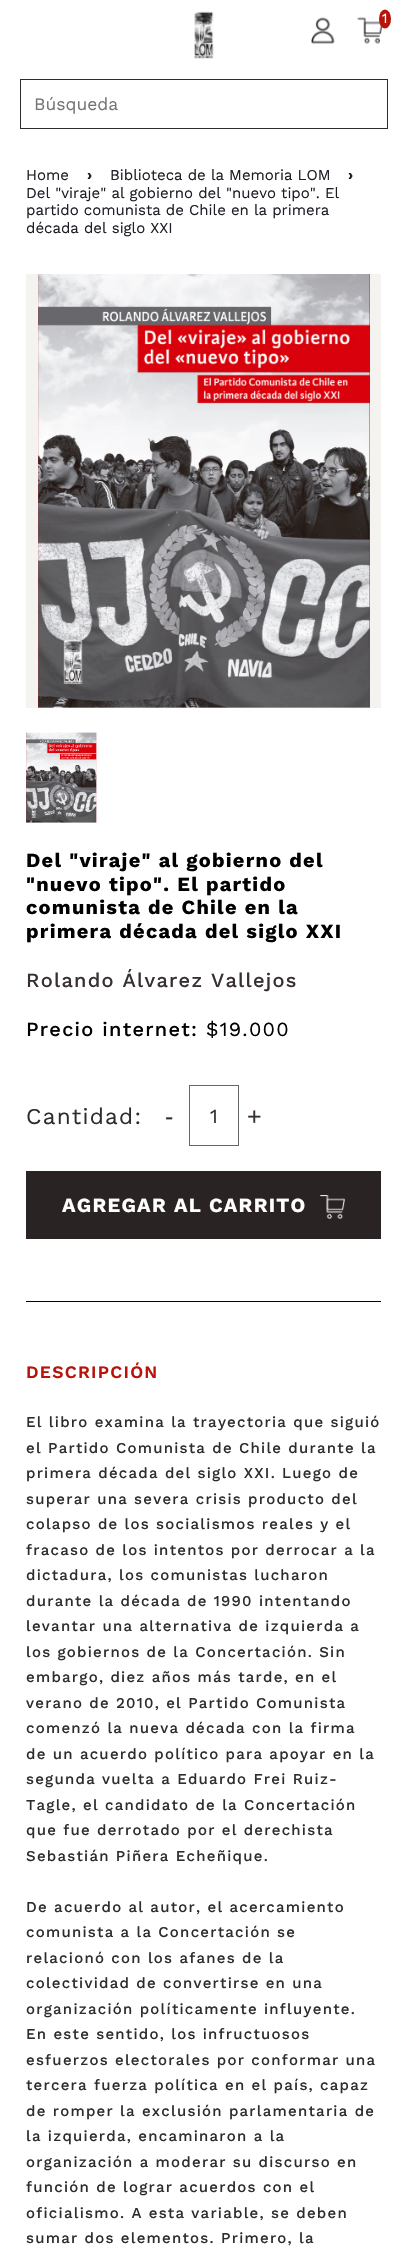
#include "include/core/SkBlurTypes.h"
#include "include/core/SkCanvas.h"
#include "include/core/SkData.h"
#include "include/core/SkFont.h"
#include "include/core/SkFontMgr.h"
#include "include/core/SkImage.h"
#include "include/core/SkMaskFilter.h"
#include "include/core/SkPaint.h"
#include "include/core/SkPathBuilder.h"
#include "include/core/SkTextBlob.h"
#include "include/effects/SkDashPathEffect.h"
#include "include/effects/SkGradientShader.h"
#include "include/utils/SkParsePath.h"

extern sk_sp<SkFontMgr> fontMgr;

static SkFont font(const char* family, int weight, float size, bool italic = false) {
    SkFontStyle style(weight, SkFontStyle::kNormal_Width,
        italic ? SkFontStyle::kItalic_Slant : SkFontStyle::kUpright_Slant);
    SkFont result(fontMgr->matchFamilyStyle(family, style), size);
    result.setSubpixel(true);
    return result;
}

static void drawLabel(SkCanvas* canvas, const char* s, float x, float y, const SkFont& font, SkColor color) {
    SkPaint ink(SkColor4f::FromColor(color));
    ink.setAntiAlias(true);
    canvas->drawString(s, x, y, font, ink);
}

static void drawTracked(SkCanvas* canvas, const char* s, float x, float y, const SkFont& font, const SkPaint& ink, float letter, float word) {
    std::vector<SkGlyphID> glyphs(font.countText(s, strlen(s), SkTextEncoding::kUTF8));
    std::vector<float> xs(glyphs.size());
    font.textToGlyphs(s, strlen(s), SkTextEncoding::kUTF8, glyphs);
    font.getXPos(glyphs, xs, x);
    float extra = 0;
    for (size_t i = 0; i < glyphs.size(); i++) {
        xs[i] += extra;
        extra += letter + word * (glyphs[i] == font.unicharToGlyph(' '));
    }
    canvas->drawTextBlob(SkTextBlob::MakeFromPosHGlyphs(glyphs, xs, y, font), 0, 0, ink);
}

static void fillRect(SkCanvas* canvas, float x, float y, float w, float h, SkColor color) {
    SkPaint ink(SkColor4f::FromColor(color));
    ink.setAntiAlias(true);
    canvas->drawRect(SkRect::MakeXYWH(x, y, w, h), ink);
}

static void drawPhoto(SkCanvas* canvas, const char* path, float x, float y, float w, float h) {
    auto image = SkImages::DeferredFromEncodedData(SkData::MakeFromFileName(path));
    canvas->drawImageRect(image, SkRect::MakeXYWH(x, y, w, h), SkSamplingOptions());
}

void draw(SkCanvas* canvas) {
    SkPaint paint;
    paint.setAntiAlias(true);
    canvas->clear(0xFFFFFFFF);
    drawPhoto(canvas, "assets/img1.png", 194, 11, 20, 48);
    drawPhoto(canvas, "assets/img2.png", 311, 17, 24, 27);
    drawPhoto(canvas, "assets/img3.png", 357, 17, 26, 27);
    paint.setColor(0xFFB7130B);
    canvas->drawOval(SkRect::MakeXYWH(379, 9.5f, 12, 19), paint);
    SkFont font1 = font("Work Sans", 400, 14);
    drawLabel(canvas, "1", 382, 23, font1, 0xFFFFFFFF);
    paint.setStroke(true);
    paint.setStrokeWidth(1);
    paint.setColor(0xFF2D2D2D);
    canvas->drawRect(SkRect::MakeXYWH(20.5f, 79.5f, 367, 49), paint);
    SkFont font2 = font("Work Sans", 400, 17.5f);
    drawLabel(canvas, "Búsqueda", 34, 110, font2, 0xFF757575);
    SkFont font3 = font("Work Sans", 400, 15);
    drawLabel(canvas, "Home", 26, 180, font3, 0xFF1E1E27);
    SkFont font4 = font("Work Sans", 700, 15);
    drawLabel(canvas, "›", 87, 180, font4, 0xFF1E1E27);
    drawLabel(canvas, "Biblioteca de la Memoria LOM", 110, 180, font3, 0xFF1E1E27);
    drawLabel(canvas, "›", 348, 180, font4, 0xFF1E1E27);
    drawLabel(canvas, "Del \"viraje\" al gobierno del \"nuevo tipo\". El", 26, 198, font3, 0xFF1E1E27);
    drawLabel(canvas, "partido comunista de Chile en la primera", 26, 215, font3, 0xFF1E1E27);
    drawLabel(canvas, "década del siglo XXI", 26, 233, font3, 0xFF1E1E27);
    fillRect(canvas, 370, 274, 11, 434, 0xFFF5F3EF);
    fillRect(canvas, 26, 274, 12, 434, 0xFFF5F3EF);
    drawPhoto(canvas, "assets/img4.png", 38, 274, 332, 434);
    drawPhoto(canvas, "assets/img5.png", 26, 732, 71, 91);
    SkFont font5 = font("Work Sans", 700, 20);
    paint.setStroke(false);
    paint.setColor(0xFF000000);
    drawTracked(canvas, "Del \"viraje\" al gobierno del", 26, 867, font5, paint, 1.25f, 0);
    drawTracked(canvas, "\"nuevo tipo\". El partido", 26, 891, font5, paint, 1.25f, 0);
    drawTracked(canvas, "comunista de Chile en la", 26, 914, font5, paint, 1.25f, 0);
    drawTracked(canvas, "primera década del siglo XXI", 26, 938, font5, paint, 1.25f, 0);
    SkFont font6 = font("Work Sans", 500, 20);
    paint.setColor(0xFF372F30);
    drawTracked(canvas, "Rolando Álvarez Vallejos", 26, 987, font6, paint, 1.25f, 0);
    paint.setColor(0xFF000000);
    drawTracked(canvas, "Precio internet:", 26, 1036, font6, paint, 1.25f, 0);
    SkFont font7 = font("Work Sans", 400, 20);
    drawTracked(canvas, "$19.000", 206, 1036, font7, paint, 1.25f, 0);
    SkFont font8 = font("Work Sans", 400, 22.5f);
    paint.setColor(0xFF2D2D2D);
    drawTracked(canvas, "Cantidad:", 26, 1124, font8, paint, 1.25f, 0);
    paint.setStroke(true);
    paint.setColor(0xFF666666);
    canvas->drawRect(SkRect::MakeXYWH(189.5f, 1085.5f, 49, 60), paint);
    drawLabel(canvas, "1", 210, 1123, font7, 0xFF372F30);
    SkFont font9 = font("Liberation Sans", 400, 25);
    drawLabel(canvas, "-", 165, 1125, font9, 0xFF372F30);
    drawLabel(canvas, "+", 247, 1125, font9, 0xFF372F30);
    fillRect(canvas, 26, 1171, 355, 68, 0xFF2A2324);
    paint.setStroke(false);
    paint.setColor(0xFFFFFFFF);
    drawTracked(canvas, "AGREGAR AL CARRITO", 62, 1212, font5, paint, 1.25f, 0);
    drawPhoto(canvas, "assets/img6.png", 320, 1195, 25, 24);
    fillRect(canvas, 26, 1301, 355, 1, 0xFF000000);
    SkFont font10 = font("Work Sans", 600, 17.5f);
    paint.setColor(0xFFB7130B);
    drawTracked(canvas, "DESCRIPCIÓN", 26, 1378, font10, paint, 1.25f, 0);
    SkFont font11 = font("Work Sans", 500, 15);
    paint.setColor(0xFF2D2D2D);
    drawTracked(canvas, "El libro examina la trayectoria que siguió", 26, 1427, font11, paint, 1.25f, 0);
    drawTracked(canvas, "el Partido Comunista de Chile durante la", 26, 1453, font11, paint, 1.25f, 0);
    drawTracked(canvas, "primera década del siglo XXI. Luego de", 26, 1478, font11, paint, 1.25f, 0);
    drawTracked(canvas, "superar una severa crisis producto del", 26, 1504, font11, paint, 1.25f, 0);
    drawTracked(canvas, "colapso de los socialismos reales y el", 26, 1529, font11, paint, 1.25f, 0);
    drawTracked(canvas, "fracaso de los intentos por derrocar a la", 26, 1555, font11, paint, 1.25f, 0);
    drawTracked(canvas, "dictadura, los comunistas lucharon", 26, 1580, font11, paint, 1.25f, 0);
    drawTracked(canvas, "durante la década de 1990 intentando", 26, 1606, font11, paint, 1.25f, 0);
    drawTracked(canvas, "levantar una alternativa de izquierda a", 26, 1631, font11, paint, 1.25f, 0);
    drawTracked(canvas, "los gobiernos de la Concertación. Sin", 26, 1657, font11, paint, 1.25f, 0);
    drawTracked(canvas, "embargo, diez años más tarde, en el", 26, 1682, font11, paint, 1.25f, 0);
    drawTracked(canvas, "verano de 2010, el Partido Comunista", 26, 1708, font11, paint, 1.25f, 0);
    drawTracked(canvas, "comenzó la nueva década con la firma", 26, 1733, font11, paint, 1.25f, 0);
    drawTracked(canvas, "de un acuerdo político para apoyar en la", 26, 1759, font11, paint, 1.25f, 0);
    drawTracked(canvas, "segunda vuelta a Eduardo Frei Ruiz-", 26, 1784, font11, paint, 1.25f, 0);
    drawTracked(canvas, "Tagle, el candidato de la Concertación", 26, 1810, font11, paint, 1.25f, 0);
    drawTracked(canvas, "que fue derrotado por el derechista", 26, 1835, font11, paint, 1.25f, 0);
    drawTracked(canvas, "Sebastián Piñera Echeñique.", 26, 1861, font11, paint, 1.25f, 0);
    drawTracked(canvas, "De acuerdo al autor, el acercamiento", 26, 1912, font11, paint, 1.25f, 0);
    drawTracked(canvas, "comunista a la Concertación se", 26, 1937, font11, paint, 1.25f, 0);
    drawTracked(canvas, "relacionó con los afanes de la", 26, 1963, font11, paint, 1.25f, 0);
    drawTracked(canvas, "colectividad de convertirse en una", 26, 1988, font11, paint, 1.25f, 0);
    drawTracked(canvas, "organización políticamente influyente.", 26, 2014, font11, paint, 1.25f, 0);
    drawTracked(canvas, "En este sentido, los infructuosos", 26, 2039, font11, paint, 1.25f, 0);
    drawTracked(canvas, "esfuerzos electorales por conformar una", 26, 2065, font11, paint, 1.25f, 0);
    drawTracked(canvas, "tercera fuerza política en el país, capaz", 26, 2090, font11, paint, 1.25f, 0);
    drawTracked(canvas, "de romper la exclusión parlamentaria de", 26, 2116, font11, paint, 1.25f, 0);
    drawTracked(canvas, "la izquierda, encaminaron a la", 26, 2141, font11, paint, 1.25f, 0);
    drawTracked(canvas, "organización a moderar su discurso en", 26, 2167, font11, paint, 1.25f, 0);
    drawTracked(canvas, "función de lograr acuerdos con el", 26, 2192, font11, paint, 1.25f, 0);
    drawTracked(canvas, "oficialismo. A esta variable, se deben", 26, 2218, font11, paint, 1.25f, 0);
    drawTracked(canvas, "sumar dos elementos. Primero, la", 26, 2243, font11, paint, 1.25f, 0);
}
